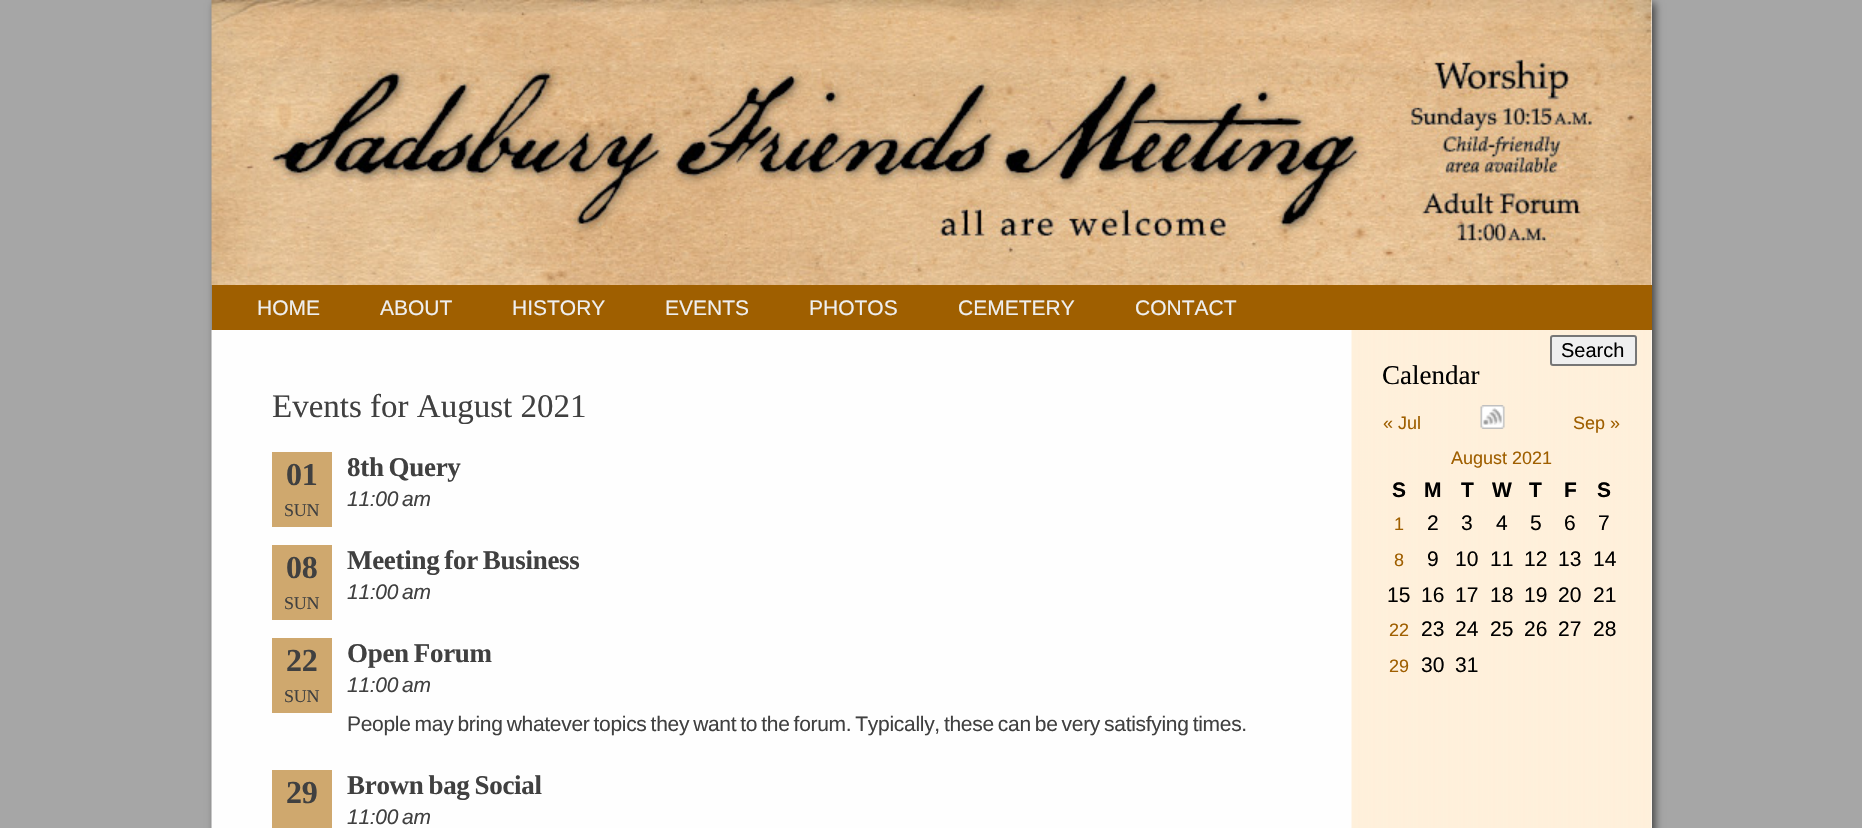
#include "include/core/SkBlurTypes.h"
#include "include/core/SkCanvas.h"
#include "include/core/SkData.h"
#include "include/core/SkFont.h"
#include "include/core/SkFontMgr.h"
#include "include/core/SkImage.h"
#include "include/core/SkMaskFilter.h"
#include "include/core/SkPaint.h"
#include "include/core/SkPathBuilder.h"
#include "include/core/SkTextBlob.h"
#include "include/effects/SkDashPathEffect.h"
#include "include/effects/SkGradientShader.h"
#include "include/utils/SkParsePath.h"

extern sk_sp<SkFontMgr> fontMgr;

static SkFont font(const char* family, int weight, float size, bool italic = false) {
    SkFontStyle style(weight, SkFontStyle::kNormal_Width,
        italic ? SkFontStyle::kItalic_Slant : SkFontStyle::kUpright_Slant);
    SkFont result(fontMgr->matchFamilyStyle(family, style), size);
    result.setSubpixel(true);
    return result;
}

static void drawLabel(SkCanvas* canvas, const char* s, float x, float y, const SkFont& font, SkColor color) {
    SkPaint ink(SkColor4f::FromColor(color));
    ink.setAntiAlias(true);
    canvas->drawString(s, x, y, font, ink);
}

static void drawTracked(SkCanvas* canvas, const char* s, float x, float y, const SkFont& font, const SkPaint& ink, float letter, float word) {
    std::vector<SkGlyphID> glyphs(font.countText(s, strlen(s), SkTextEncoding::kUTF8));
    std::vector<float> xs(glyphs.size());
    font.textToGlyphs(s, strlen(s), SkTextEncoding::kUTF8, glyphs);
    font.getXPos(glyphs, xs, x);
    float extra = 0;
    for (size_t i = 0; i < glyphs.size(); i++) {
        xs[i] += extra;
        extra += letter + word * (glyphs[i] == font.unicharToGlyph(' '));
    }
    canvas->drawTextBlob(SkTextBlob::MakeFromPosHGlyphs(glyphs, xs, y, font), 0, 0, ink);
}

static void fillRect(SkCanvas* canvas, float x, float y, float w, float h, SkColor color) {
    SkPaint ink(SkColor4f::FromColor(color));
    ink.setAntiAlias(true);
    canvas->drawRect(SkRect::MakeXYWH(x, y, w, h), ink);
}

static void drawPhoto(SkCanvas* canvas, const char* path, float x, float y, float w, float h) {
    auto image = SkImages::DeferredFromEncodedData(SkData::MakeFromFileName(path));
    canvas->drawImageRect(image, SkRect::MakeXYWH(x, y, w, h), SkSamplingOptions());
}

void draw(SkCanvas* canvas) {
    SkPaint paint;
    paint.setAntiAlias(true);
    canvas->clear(0xFFA6A6A6);
    paint.setColor(0x99000000);
    paint.setMaskFilter(SkMaskFilter::MakeBlur(kNormal_SkBlurStyle, 4));
    canvas->drawRect(SkRect::MakeXYWH(215, 3, 1440, 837), paint);
    paint.setMaskFilter(nullptr);
    fillRect(canvas, 1651, 0, 1, 828, 0xFFFEFEFE);
    drawPhoto(canvas, "assets/img1.png", 211, 0, 1441, 285);
    fillRect(canvas, 212, 285, 1440, 45, 0xFF9F5F00);
    SkFont font1 = font("Liberation Sans", 400, 21);
    drawLabel(canvas, "HOME", 257, 315, font1, 0xFFEFEFEF);
    drawLabel(canvas, "ABOUT", 380, 315, font1, 0xFFEFEFEF);
    drawLabel(canvas, "HISTORY", 512, 315, font1, 0xFFEFEFEF);
    drawLabel(canvas, "EVENTS", 665, 315, font1, 0xFFEFEFEF);
    drawLabel(canvas, "PHOTOS", 809, 315, font1, 0xFFEFEFEF);
    drawLabel(canvas, "CEMETERY", 958, 315, font1, 0xFFEFEFEF);
    drawLabel(canvas, "CONTACT", 1135, 315, font1, 0xFFEFEFEF);
    drawPhoto(canvas, "assets/img2.png", 211, 330, 1441, 498);
    paint.setColor(0xFFEFEFEF);
    canvas->drawRoundRect(SkRect::MakeXYWH(1551, 336, 85, 29), 2, 2, paint);
    paint.setStroke(true);
    paint.setStrokeWidth(2);
    paint.setColor(0xFF767676);
    canvas->drawRoundRect(SkRect::MakeXYWH(1551, 336, 85, 29), 2, 2, paint);
    SkFont font2 = font("Liberation Sans", 400, 20);
    drawLabel(canvas, "Search", 1561, 357, font2, 0xFF000000);
    SkFont font3 = font("Liberation Serif", 400, 33);
    drawLabel(canvas, "Events for August 2021", 272, 417, font3, 0xFF404040);
    fillRect(canvas, 272, 452, 60, 75, 0xFFCFA86E);
    SkFont font4 = font("Liberation Serif", 700, 32);
    paint.setStroke(false);
    paint.setColor(0xFF404040);
    drawTracked(canvas, "01", 286, 485, font4, paint, -0.3f, 0);
    SkFont font5 = font("Liberation Serif", 400, 18);
    drawTracked(canvas, "SUN", 284, 516, font5, paint, -0.3f, 0);
    SkFont font6 = font("Liberation Serif", 700, 27);
    drawTracked(canvas, "8th Query", 347, 476, font6, paint, -0.3f, -1.5f);
    SkFont font7 = font("Liberation Sans", 400, 21, true);
    drawTracked(canvas, "11:00 am", 347, 506, font7, paint, -0.3f, -1.5f);
    fillRect(canvas, 272, 545, 60, 75, 0xFFCFA86E);
    drawTracked(canvas, "08", 286, 578, font4, paint, -0.3f, 0);
    drawTracked(canvas, "SUN", 284, 609, font5, paint, -0.3f, 0);
    drawTracked(canvas, "Meeting for Business", 347, 569, font6, paint, -0.3f, -1.5f);
    drawTracked(canvas, "11:00 am", 347, 599, font7, paint, -0.3f, -1.5f);
    fillRect(canvas, 272, 638, 60, 75, 0xFFCFA86E);
    drawTracked(canvas, "22", 286, 671, font4, paint, -0.3f, 0);
    drawTracked(canvas, "SUN", 284, 702, font5, paint, -0.3f, 0);
    drawTracked(canvas, "Open Forum", 347, 662, font6, paint, -0.3f, -1.5f);
    drawTracked(canvas, "11:00 am", 347, 692, font7, paint, -0.3f, -1.5f);
    drawTracked(canvas, "People may bring whatever topics they want to the forum. Typically, these can be very satisfying times.", 347, 731, font1, paint, -0.3f, -1.5f);
    fillRect(canvas, 272, 770, 60, 58, 0xFFCFA86E);
    drawTracked(canvas, "29", 286, 803, font4, paint, -0.3f, 0);
    drawTracked(canvas, "Brown bag Social", 347, 794, font6, paint, -0.3f, -1.5f);
    drawTracked(canvas, "11:00 am", 347, 824, font7, paint, -0.3f, -1.5f);
    SkFont font8 = font("Liberation Serif", 400, 27);
    drawLabel(canvas, "Calendar", 1382, 384, font8, 0xFF000000);
    SkFont font9 = font("Liberation Sans", 400, 18);
    drawLabel(canvas, "« Jul", 1383, 429, font9, 0xFF9F5F00);
    drawPhoto(canvas, "assets/img3.png", 1480, 405, 25, 24);
    drawLabel(canvas, "Sep »", 1573, 429, font9, 0xFF9F5F00);
    drawLabel(canvas, "August 2021", 1451, 464, font9, 0xFF9F5F00);
    SkFont font10 = font("Liberation Sans", 700, 21);
    drawLabel(canvas, "S", 1392, 497, font10, 0xFF000000);
    drawLabel(canvas, "M", 1424, 497, font10, 0xFF000000);
    drawLabel(canvas, "T", 1461, 497, font10, 0xFF000000);
    drawLabel(canvas, "W", 1492, 497, font10, 0xFF000000);
    drawLabel(canvas, "T", 1529, 497, font10, 0xFF000000);
    drawLabel(canvas, "F", 1564, 497, font10, 0xFF000000);
    drawLabel(canvas, "S", 1597, 497, font10, 0xFF000000);
    drawLabel(canvas, "1", 1394, 530, font9, 0xFF9F5F00);
    drawLabel(canvas, "2", 1427, 530, font1, 0xFF000000);
    drawLabel(canvas, "3", 1461, 530, font1, 0xFF000000);
    drawLabel(canvas, "4", 1496, 530, font1, 0xFF000000);
    drawLabel(canvas, "5", 1530, 530, font1, 0xFF000000);
    drawLabel(canvas, "6", 1564, 530, font1, 0xFF000000);
    drawLabel(canvas, "7", 1598, 530, font1, 0xFF000000);
    drawLabel(canvas, "8", 1394, 566, font9, 0xFF9F5F00);
    drawLabel(canvas, "9", 1427, 566, font1, 0xFF000000);
    drawLabel(canvas, "10", 1455, 566, font1, 0xFF000000);
    drawLabel(canvas, "11", 1490, 566, font1, 0xFF000000);
    drawLabel(canvas, "12", 1524, 566, font1, 0xFF000000);
    drawLabel(canvas, "13", 1558, 566, font1, 0xFF000000);
    drawLabel(canvas, "14", 1593, 566, font1, 0xFF000000);
    drawLabel(canvas, "15", 1387, 602, font1, 0xFF000000);
    drawLabel(canvas, "16", 1421, 602, font1, 0xFF000000);
    drawLabel(canvas, "17", 1455, 602, font1, 0xFF000000);
    drawLabel(canvas, "18", 1490, 602, font1, 0xFF000000);
    drawLabel(canvas, "19", 1524, 602, font1, 0xFF000000);
    drawLabel(canvas, "20", 1558, 602, font1, 0xFF000000);
    drawLabel(canvas, "21", 1593, 602, font1, 0xFF000000);
    drawLabel(canvas, "22", 1389, 636, font9, 0xFF9F5F00);
    drawLabel(canvas, "23", 1421, 636, font1, 0xFF000000);
    drawLabel(canvas, "24", 1455, 636, font1, 0xFF000000);
    drawLabel(canvas, "25", 1490, 636, font1, 0xFF000000);
    drawLabel(canvas, "26", 1524, 636, font1, 0xFF000000);
    drawLabel(canvas, "27", 1558, 636, font1, 0xFF000000);
    drawLabel(canvas, "28", 1593, 636, font1, 0xFF000000);
    drawLabel(canvas, "29", 1389, 672, font9, 0xFF9F5F00);
    drawLabel(canvas, "30", 1421, 672, font1, 0xFF000000);
    drawLabel(canvas, "31", 1455, 672, font1, 0xFF000000);
}
